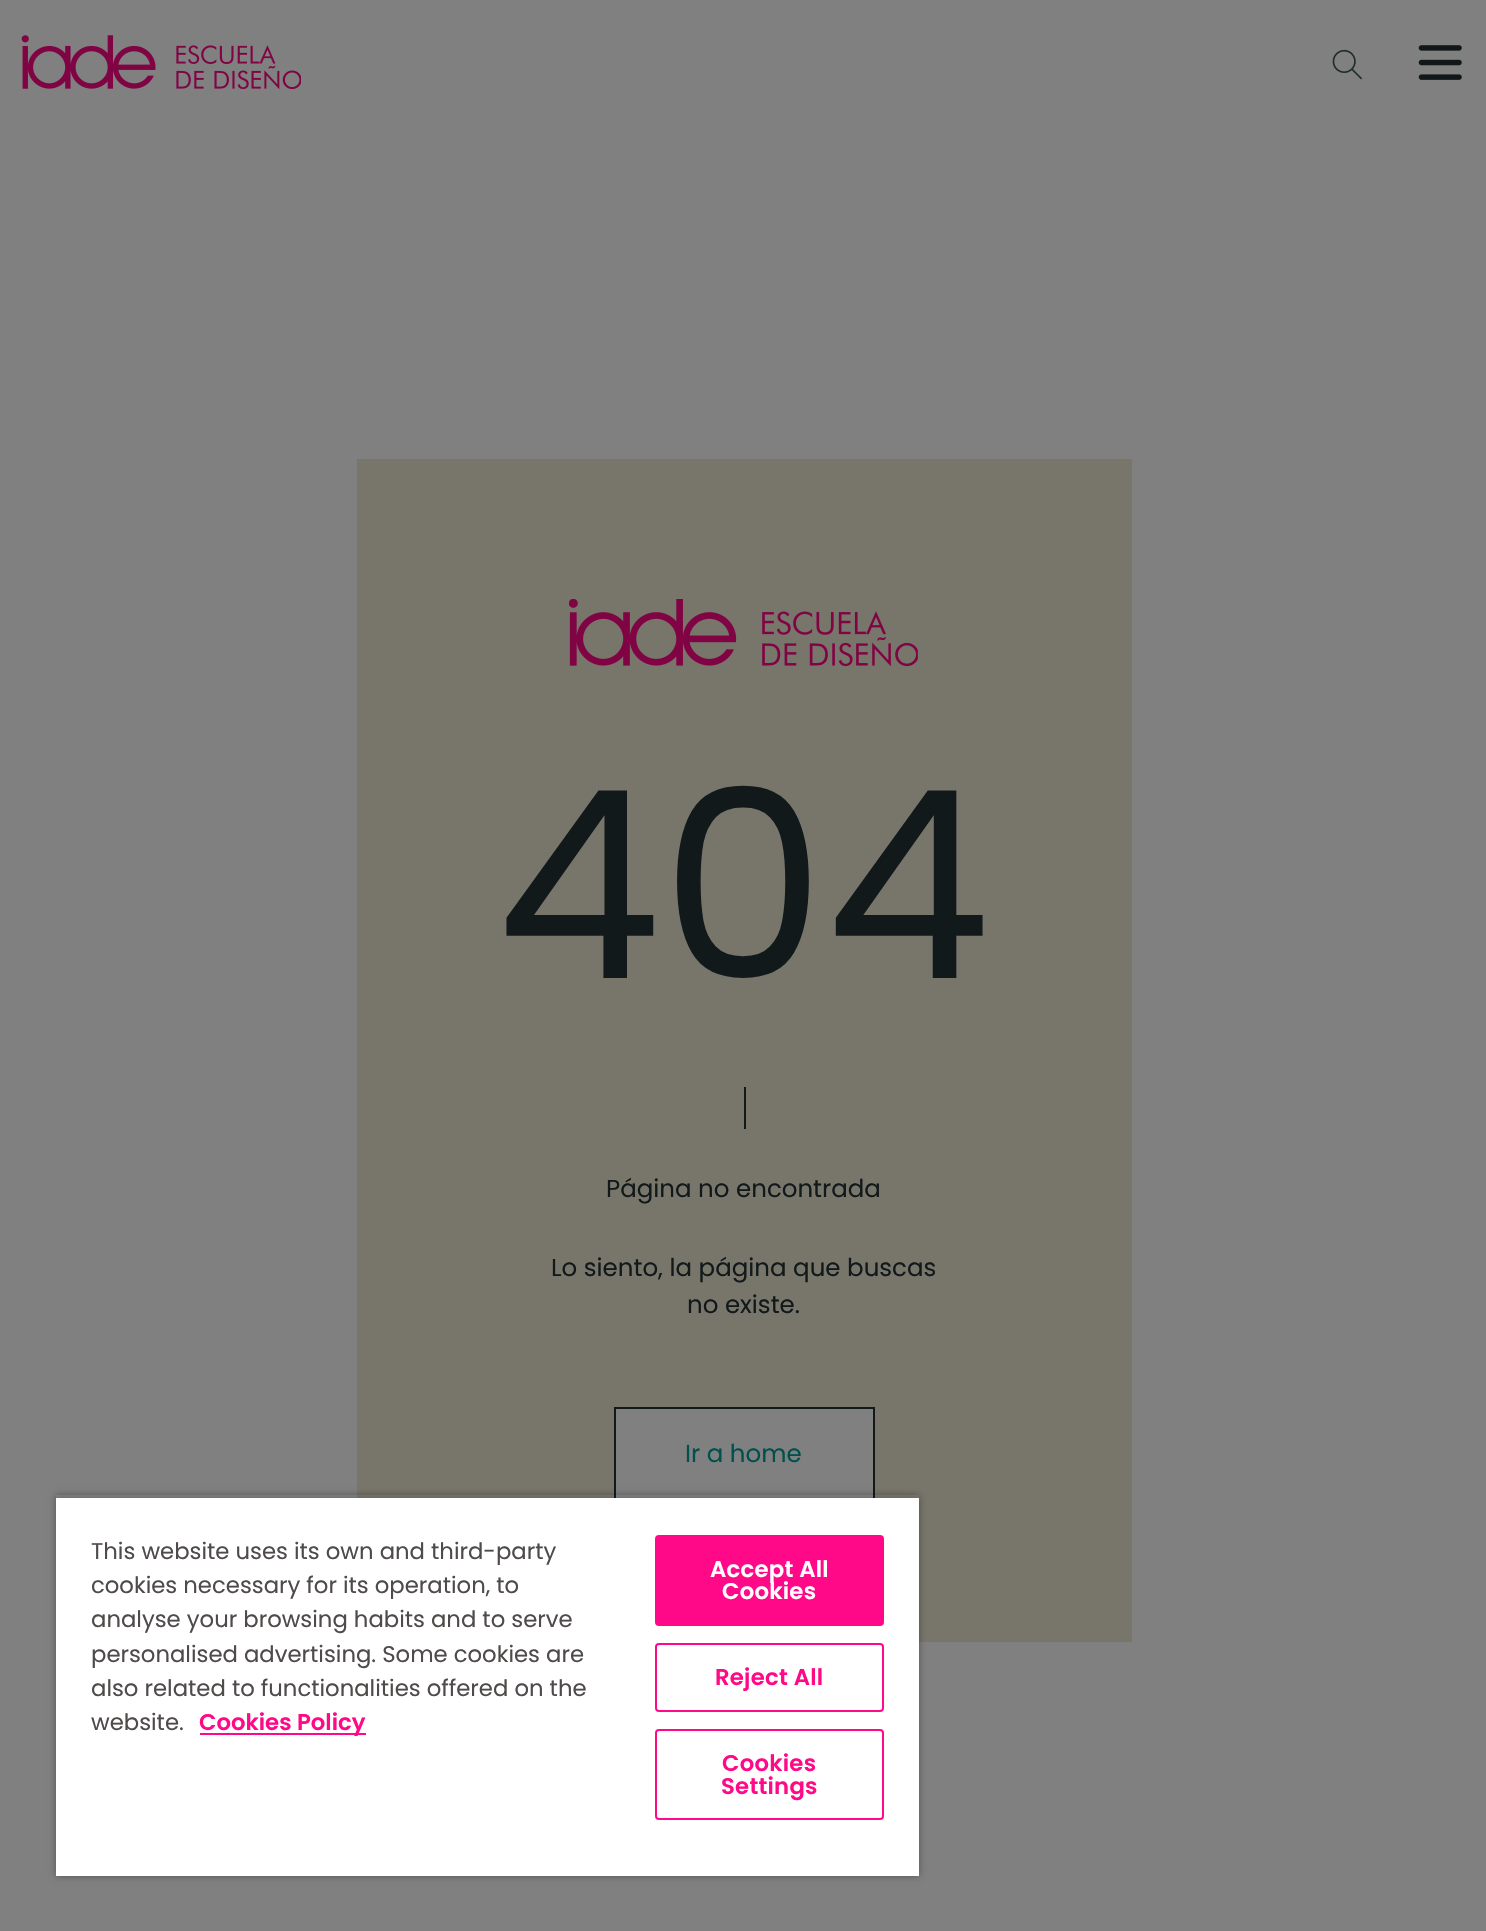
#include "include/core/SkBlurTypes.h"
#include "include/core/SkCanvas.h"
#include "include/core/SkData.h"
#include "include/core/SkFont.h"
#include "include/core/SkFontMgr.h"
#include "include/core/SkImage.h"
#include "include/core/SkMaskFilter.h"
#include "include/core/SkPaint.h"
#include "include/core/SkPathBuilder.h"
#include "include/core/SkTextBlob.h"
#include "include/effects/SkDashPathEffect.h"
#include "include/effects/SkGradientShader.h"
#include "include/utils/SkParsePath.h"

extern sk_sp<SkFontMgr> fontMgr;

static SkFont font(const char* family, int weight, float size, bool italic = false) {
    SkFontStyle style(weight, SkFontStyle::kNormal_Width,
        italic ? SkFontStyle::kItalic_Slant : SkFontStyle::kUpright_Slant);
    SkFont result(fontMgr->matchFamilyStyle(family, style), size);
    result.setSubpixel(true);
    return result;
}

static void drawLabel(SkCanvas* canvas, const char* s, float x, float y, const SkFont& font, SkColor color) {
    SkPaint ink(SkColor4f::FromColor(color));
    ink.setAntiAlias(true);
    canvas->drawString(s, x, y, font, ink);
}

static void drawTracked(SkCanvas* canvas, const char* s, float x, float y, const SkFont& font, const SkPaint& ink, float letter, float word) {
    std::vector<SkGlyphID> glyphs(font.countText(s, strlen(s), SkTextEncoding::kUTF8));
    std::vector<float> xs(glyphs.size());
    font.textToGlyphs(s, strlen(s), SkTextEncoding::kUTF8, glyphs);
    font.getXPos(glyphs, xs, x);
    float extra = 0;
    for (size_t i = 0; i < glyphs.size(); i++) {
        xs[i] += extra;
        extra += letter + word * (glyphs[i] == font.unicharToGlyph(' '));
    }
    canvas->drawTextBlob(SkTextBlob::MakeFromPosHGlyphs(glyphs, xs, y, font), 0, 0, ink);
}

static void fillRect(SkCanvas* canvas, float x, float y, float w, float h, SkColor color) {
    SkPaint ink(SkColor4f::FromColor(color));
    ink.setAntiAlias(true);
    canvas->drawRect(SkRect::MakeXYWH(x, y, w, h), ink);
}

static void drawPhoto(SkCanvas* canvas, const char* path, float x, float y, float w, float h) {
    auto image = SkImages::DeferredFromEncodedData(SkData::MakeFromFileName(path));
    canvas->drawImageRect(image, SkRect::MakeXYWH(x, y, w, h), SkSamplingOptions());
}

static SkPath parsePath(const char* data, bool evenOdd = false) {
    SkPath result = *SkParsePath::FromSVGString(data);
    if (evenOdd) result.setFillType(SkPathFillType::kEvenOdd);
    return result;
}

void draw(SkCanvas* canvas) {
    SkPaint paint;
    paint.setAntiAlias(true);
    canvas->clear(0xFF808080);
    drawPhoto(canvas, "assets/img1.png", 21, 35, 280, 55);
    drawPhoto(canvas, "assets/img2.png", 1332, 49, 31, 31);
    drawPhoto(canvas, "assets/img3.png", 1418, 45, 44, 35);
    fillRect(canvas, 357, 459, 775, 1183, 0xFF78756B);
    drawPhoto(canvas, "assets/img4.png", 569, 599, 349, 68);
    SkFont font1 = font("Poppins", 400, 262);
    drawLabel(canvas, "404", 496, 978, font1, 0xFF12191B);
    fillRect(canvas, 744, 1087, 2, 42, 0xFF12191B);
    SkFont font2 = font("Poppins", 400, 24.5f);
    drawLabel(canvas, "Página no encontrada", 606, 1197, font2, 0xFF12191B);
    drawLabel(canvas, "Lo siento, la página que buscas", 551, 1276, font2, 0xFF12191B);
    drawLabel(canvas, "no existe.", 687, 1313, font2, 0xFF12191B);
    fillRect(canvas, 616, 1409, 257, 89, 0xFF808080);
    paint.setStroke(true);
    paint.setStrokeWidth(2);
    paint.setColor(0xFF12191B);
    canvas->drawRect(SkRect::MakeXYWH(615, 1408, 259, 93), paint);
    drawLabel(canvas, "Ir a home", 685, 1462, font2, 0xFF00504D);
    canvas->save();
    canvas->clipPath(parsePath("M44 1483H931V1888H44ZM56 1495H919V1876H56Z", true), true);
    paint.setStroke(false);
    paint.setColor(0x59000000);
    paint.setMaskFilter(SkMaskFilter::MakeBlur(kNormal_SkBlurStyle, 3.5f));
    canvas->drawRect(SkRect::MakeXYWH(56, 1495, 863, 381), paint);
    paint.setMaskFilter(nullptr);
    canvas->restore();
    canvas->save();
    canvas->clipRect(SkRect::MakeXYWH(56, 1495, 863, 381));
    paint.setColor(0x33000000);
    paint.setMaskFilter(SkMaskFilter::MakeBlur(kNormal_SkBlurStyle, 3.5f));
    canvas->drawRect(SkRect::MakeXYWH(56, 1498, 863, 378), paint);
    paint.setMaskFilter(nullptr);
    canvas->restore();
    fillRect(canvas, 56, 1498, 863, 378, 0xFFFFFFFF);
    SkFont font3 = font("Poppins", 400, 22.75f);
    drawLabel(canvas, "This website uses its own and third-party", 91, 1559, font3, 0xFF504B4B);
    drawLabel(canvas, "cookies necessary for its operation, to", 91, 1593, font3, 0xFF504B4B);
    drawLabel(canvas, "analyse your browsing habits and to serve", 91, 1627, font3, 0xFF504B4B);
    drawLabel(canvas, "personalised advertising. Some cookies are", 91, 1662, font3, 0xFF504B4B);
    drawLabel(canvas, "also related to functionalities offered on the", 91, 1696, font3, 0xFF504B4B);
    drawLabel(canvas, "website.", 91, 1730, font3, 0xFF504B4B);
    fillRect(canvas, 200, 1733, 166, 2, 0xFFFF0988);
    SkFont font4 = font("Poppins", 600, 22.75f);
    drawLabel(canvas, "Cookies Policy", 199, 1730, font4, 0xFFFF0988);
    paint.setColor(0xFFFF0988);
    canvas->drawRoundRect(SkRect::MakeXYWH(656, 1536, 227, 89), 3, 3, paint);
    paint.setStroke(true);
    canvas->drawRoundRect(SkRect::MakeXYWH(656, 1536, 227, 89), 3, 3, paint);
    paint.setStroke(false);
    paint.setColor(0xFFFFFFFF);
    drawTracked(canvas, "Accept All", 710, 1577, font4, paint, 0.25f, 0);
    drawTracked(canvas, "Cookies", 722, 1599, font4, paint, 0.25f, 0);
    paint.setStroke(true);
    paint.setColor(0xFFFF0988);
    canvas->drawRoundRect(SkRect::MakeXYWH(656, 1644, 227, 67), 3, 3, paint);
    paint.setStroke(false);
    drawTracked(canvas, "Reject All", 715, 1685, font4, paint, 0.25f, 0);
    paint.setStroke(true);
    canvas->drawRoundRect(SkRect::MakeXYWH(656, 1730, 227, 89), 3, 3, paint);
    paint.setStroke(false);
    drawTracked(canvas, "Cookies", 722, 1771, font4, paint, 0.25f, 0);
    drawTracked(canvas, "Settings", 721, 1794, font4, paint, 0.25f, 0);
}
